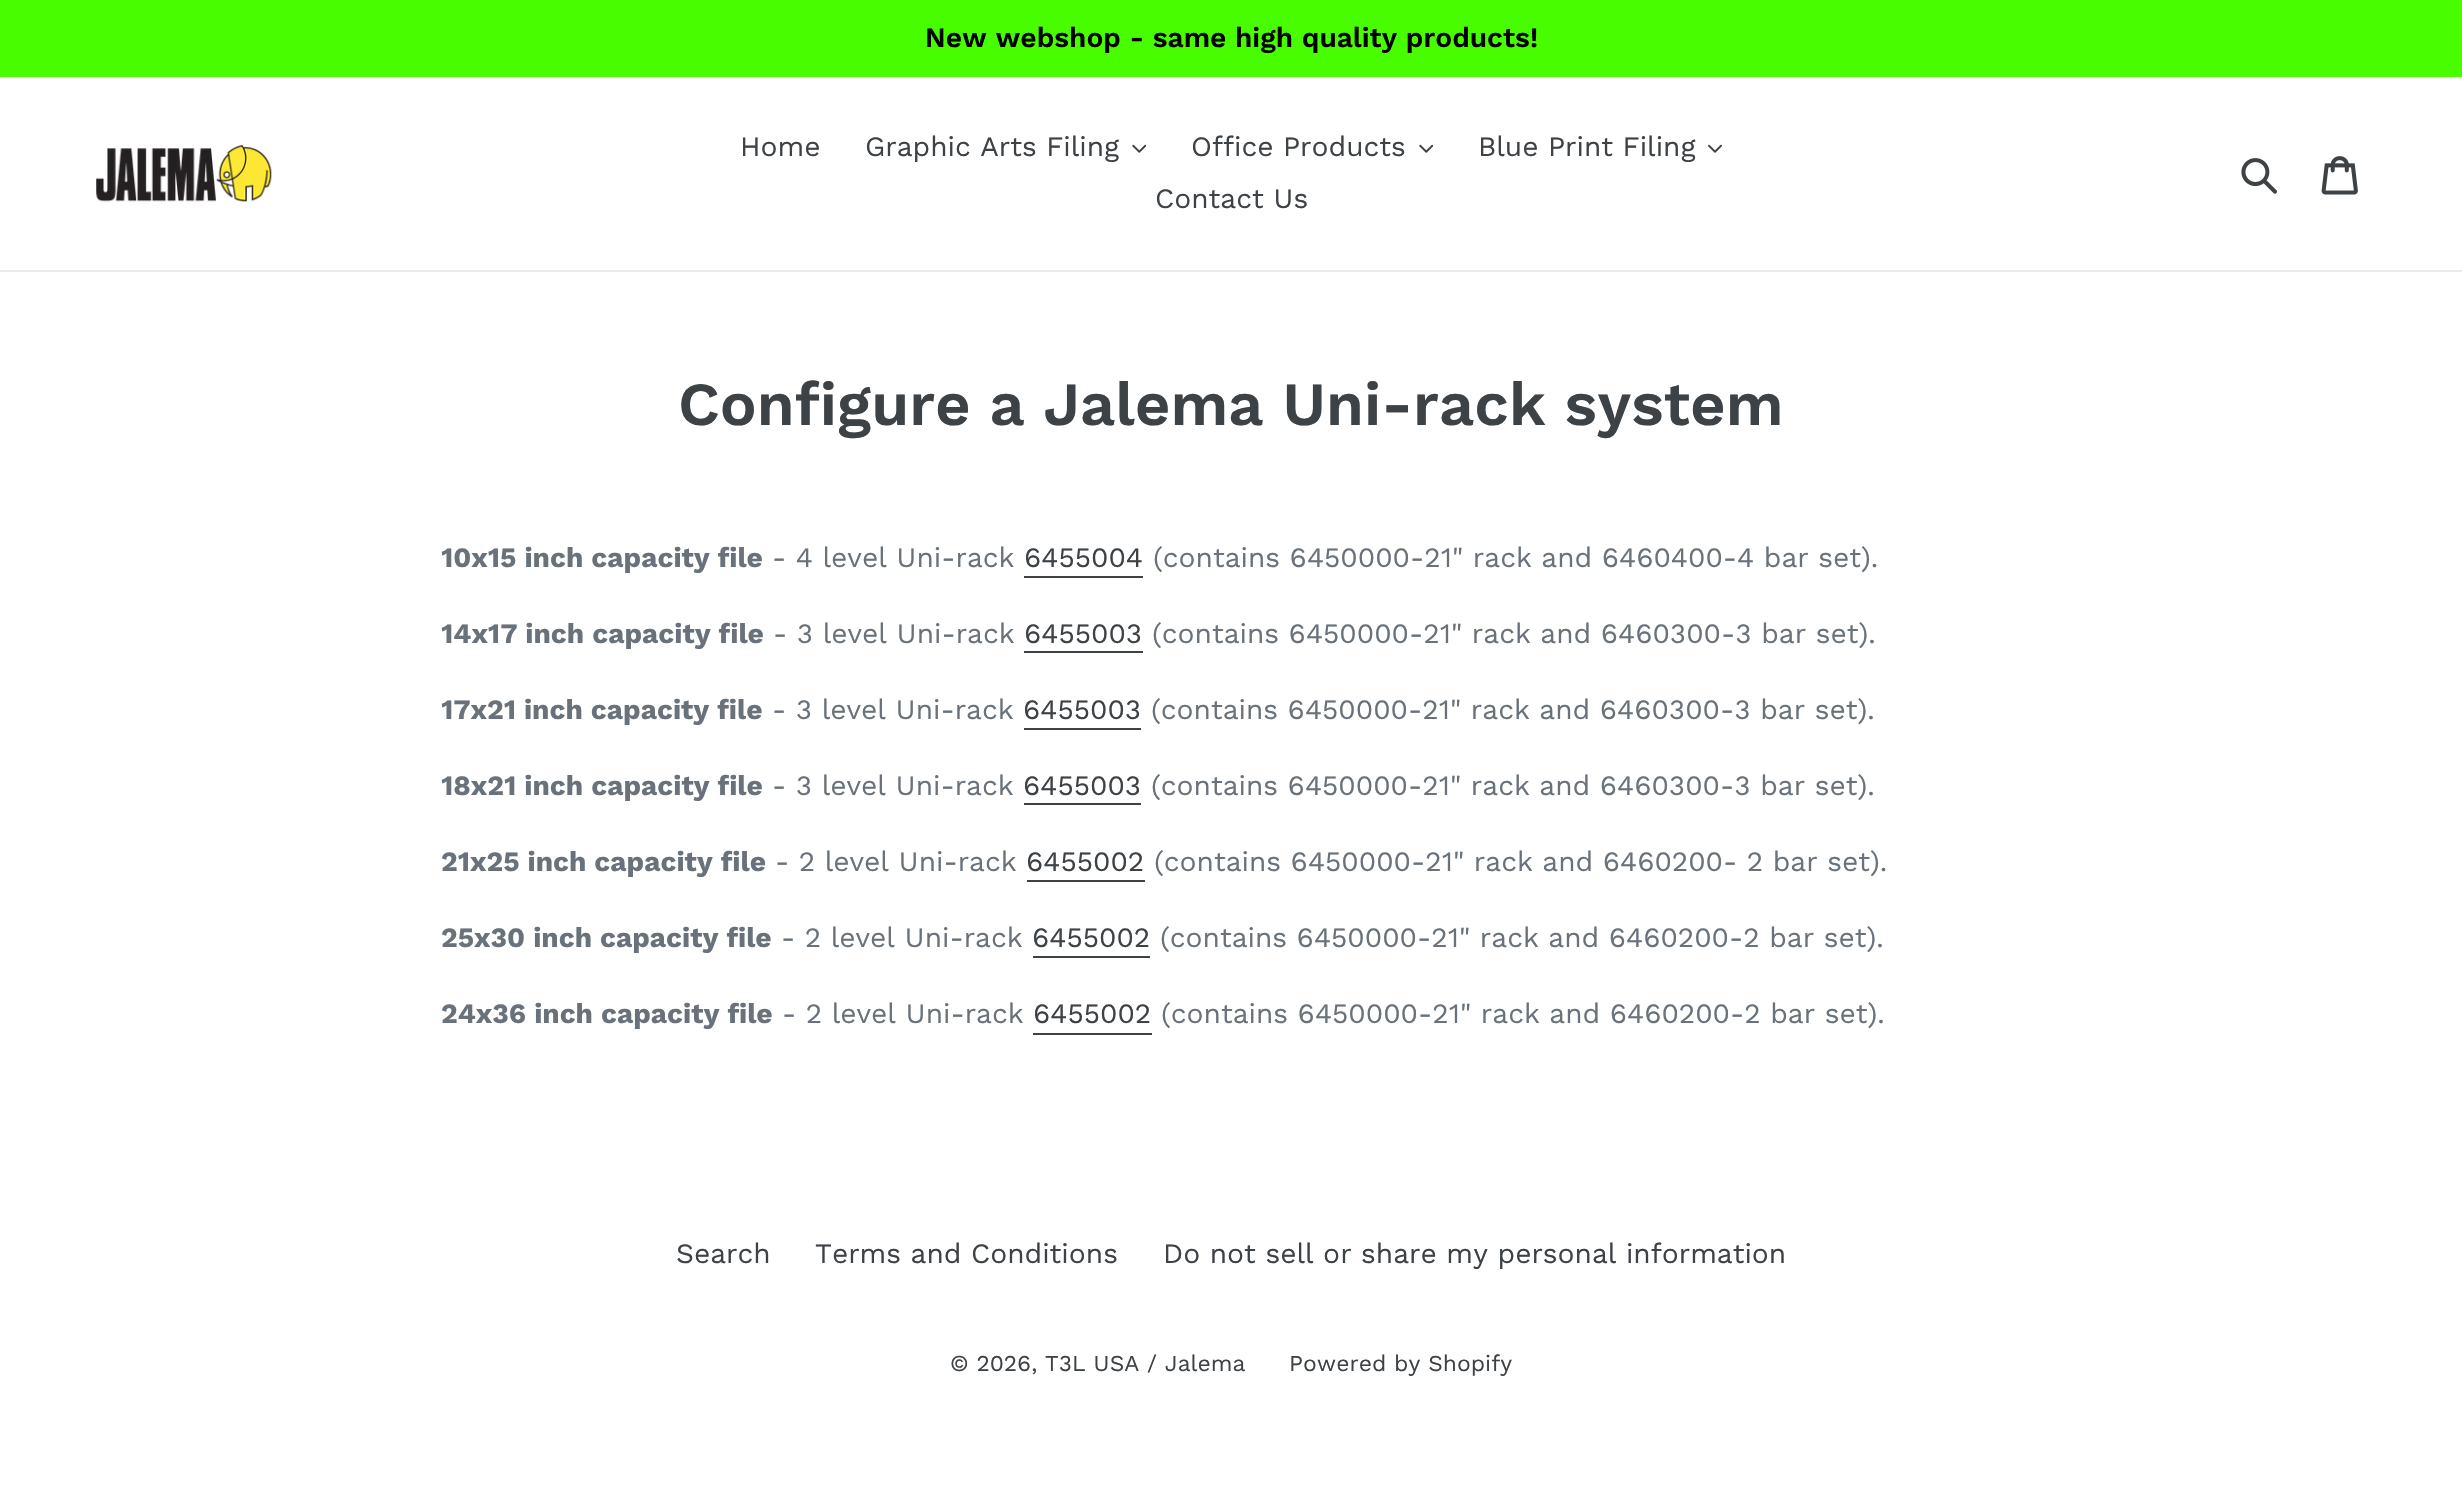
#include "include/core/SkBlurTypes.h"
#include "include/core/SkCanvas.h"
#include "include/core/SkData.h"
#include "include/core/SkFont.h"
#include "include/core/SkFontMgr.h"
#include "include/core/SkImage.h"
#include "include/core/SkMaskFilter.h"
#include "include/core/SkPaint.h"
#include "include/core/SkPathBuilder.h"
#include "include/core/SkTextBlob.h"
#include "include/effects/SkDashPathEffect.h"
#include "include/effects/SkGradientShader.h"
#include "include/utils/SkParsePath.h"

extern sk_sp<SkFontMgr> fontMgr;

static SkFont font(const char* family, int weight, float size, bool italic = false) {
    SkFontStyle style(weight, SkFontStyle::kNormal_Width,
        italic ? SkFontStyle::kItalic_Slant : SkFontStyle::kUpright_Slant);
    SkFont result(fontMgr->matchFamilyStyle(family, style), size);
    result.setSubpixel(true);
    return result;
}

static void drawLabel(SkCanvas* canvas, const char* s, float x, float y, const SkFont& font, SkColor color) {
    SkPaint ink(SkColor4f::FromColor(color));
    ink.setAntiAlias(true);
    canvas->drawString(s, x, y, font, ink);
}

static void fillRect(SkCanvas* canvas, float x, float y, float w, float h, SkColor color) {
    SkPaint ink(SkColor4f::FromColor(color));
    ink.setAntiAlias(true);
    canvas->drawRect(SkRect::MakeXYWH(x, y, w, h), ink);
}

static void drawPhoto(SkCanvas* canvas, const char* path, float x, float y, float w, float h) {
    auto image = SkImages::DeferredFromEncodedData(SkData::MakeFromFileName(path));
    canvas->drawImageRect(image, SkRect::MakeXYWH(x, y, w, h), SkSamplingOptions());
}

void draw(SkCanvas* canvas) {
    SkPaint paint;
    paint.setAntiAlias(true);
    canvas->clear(0xFFFFFFFF);
    fillRect(canvas, 0, 0, 2462, 77, 0xFF48FD00);
    SkFont font1 = font("Work Sans", 600, 28);
    drawLabel(canvas, "New webshop - same high quality products!", 925, 47, font1, 0xFF000000);
    fillRect(canvas, 0, 270, 2462, 2, 0xFFE8E9EB);
    drawPhoto(canvas, "assets/img1.png", 96, 145, 176, 57);
    SkFont font2 = font("Work Sans", 400, 28);
    drawLabel(canvas, "Home", 740, 156, font2, 0xFF3D4246);
    drawLabel(canvas, "Graphic Arts Filing", 865, 156, font2, 0xFF3D4246);
    drawPhoto(canvas, "assets/img2.png", 1132, 144, 14, 9);
    drawLabel(canvas, "Office Products", 1191, 156, font2, 0xFF3D4246);
    drawPhoto(canvas, "assets/img2.png", 1419, 144, 14, 9);
    drawLabel(canvas, "Blue Print Filing", 1478, 156, font2, 0xFF3D4246);
    drawPhoto(canvas, "assets/img3.png", 1708, 144, 14, 9);
    drawLabel(canvas, "Contact Us", 1155, 208, font2, 0xFF3D4246);
    drawPhoto(canvas, "assets/img4.png", 2241, 158, 36, 36);
    drawPhoto(canvas, "assets/img5.png", 2321, 156, 37, 39);
    SkFont font3 = font("Work Sans", 600, 61.25f);
    drawLabel(canvas, "Configure a Jalema Uni-rack system", 678, 425, font3, 0xFF3D4246);
    SkFont font4 = font("Work Sans", 700, 28);
    drawLabel(canvas, "10x15 inch capacity file", 441, 567, font4, 0xFF69727B);
    drawLabel(canvas, "- 4 level Uni-rack", 772, 567, font2, 0xFF69727B);
    drawLabel(canvas, "6455004", 1024, 567, font2, 0xFF3D4246);
    fillRect(canvas, 1024, 576, 119, 2, 0xFF3D4246);
    drawLabel(canvas, "(contains 6450000-21\" rack and 6460400-4 bar set).", 1153, 567, font2, 0xFF69727B);
    drawLabel(canvas, "14x17 inch capacity file", 441, 643, font4, 0xFF69727B);
    drawLabel(canvas, "- 3 level Uni-rack", 773, 643, font2, 0xFF69727B);
    drawLabel(canvas, "6455003", 1024, 643, font2, 0xFF3D4246);
    fillRect(canvas, 1024, 651, 119, 2, 0xFF3D4246);
    drawLabel(canvas, "(contains 6450000-21\" rack and 6460300-3 bar set).", 1152, 643, font2, 0xFF69727B);
    drawLabel(canvas, "17x21 inch capacity file", 441, 719, font4, 0xFF69727B);
    drawLabel(canvas, "- 3 level Uni-rack", 772, 719, font2, 0xFF69727B);
    drawLabel(canvas, "6455003", 1023, 719, font2, 0xFF3D4246);
    fillRect(canvas, 1024, 728, 117, 2, 0xFF3D4246);
    drawLabel(canvas, "(contains 6450000-21\" rack and 6460300-3 bar set).", 1151, 719, font2, 0xFF69727B);
    drawLabel(canvas, "18x21 inch capacity file", 441, 795, font4, 0xFF69727B);
    drawLabel(canvas, "- 3 level Uni-rack", 772, 795, font2, 0xFF69727B);
    drawLabel(canvas, "6455003", 1023, 795, font2, 0xFF3D4246);
    fillRect(canvas, 1024, 803, 117, 2, 0xFF3D4246);
    drawLabel(canvas, "(contains 6450000-21\" rack and 6460300-3 bar set).", 1151, 795, font2, 0xFF69727B);
    drawLabel(canvas, "21x25 inch capacity file", 441, 871, font4, 0xFF69727B);
    drawLabel(canvas, "- 2 level Uni-rack", 775, 871, font2, 0xFF69727B);
    drawLabel(canvas, "6455002", 1026, 871, font2, 0xFF3D4246);
    fillRect(canvas, 1027, 880, 118, 2, 0xFF3D4246);
    drawLabel(canvas, "(contains 6450000-21\" rack and 6460200- 2 bar set).", 1154, 871, font2, 0xFF69727B);
    drawLabel(canvas, "25x30 inch capacity file", 441, 947, font4, 0xFF69727B);
    drawLabel(canvas, "- 2 level Uni-rack", 781, 947, font2, 0xFF69727B);
    drawLabel(canvas, "6455002", 1032, 947, font2, 0xFF3D4246);
    fillRect(canvas, 1033, 956, 117, 2, 0xFF3D4246);
    drawLabel(canvas, "(contains 6450000-21\" rack and 6460200-2 bar set).", 1160, 947, font2, 0xFF69727B);
    drawLabel(canvas, "24x36 inch capacity file", 441, 1023, font4, 0xFF69727B);
    drawLabel(canvas, "- 2 level Uni-rack", 782, 1023, font2, 0xFF69727B);
    drawLabel(canvas, "6455002", 1033, 1023, font2, 0xFF3D4246);
    fillRect(canvas, 1033, 1033, 119, 2, 0xFF3D4246);
    drawLabel(canvas, "(contains 6450000-21\" rack and 6460200-2 bar set).", 1161, 1023, font2, 0xFF69727B);
    drawLabel(canvas, "Search", 676, 1263, font2, 0xFF3D4246);
    drawLabel(canvas, "Terms and Conditions", 815, 1263, font2, 0xFF3D4246);
    drawLabel(canvas, "Do not sell or share my personal information", 1163, 1263, font2, 0xFF3D4246);
    SkFont font5 = font("Work Sans", 400, 22.75f);
    drawLabel(canvas, "© 2026, T3L USA / Jalema", 950, 1371, font5, 0xFF3D4246);
    drawLabel(canvas, "Powered by Shopify", 1289, 1371, font5, 0xFF3D4246);
}
